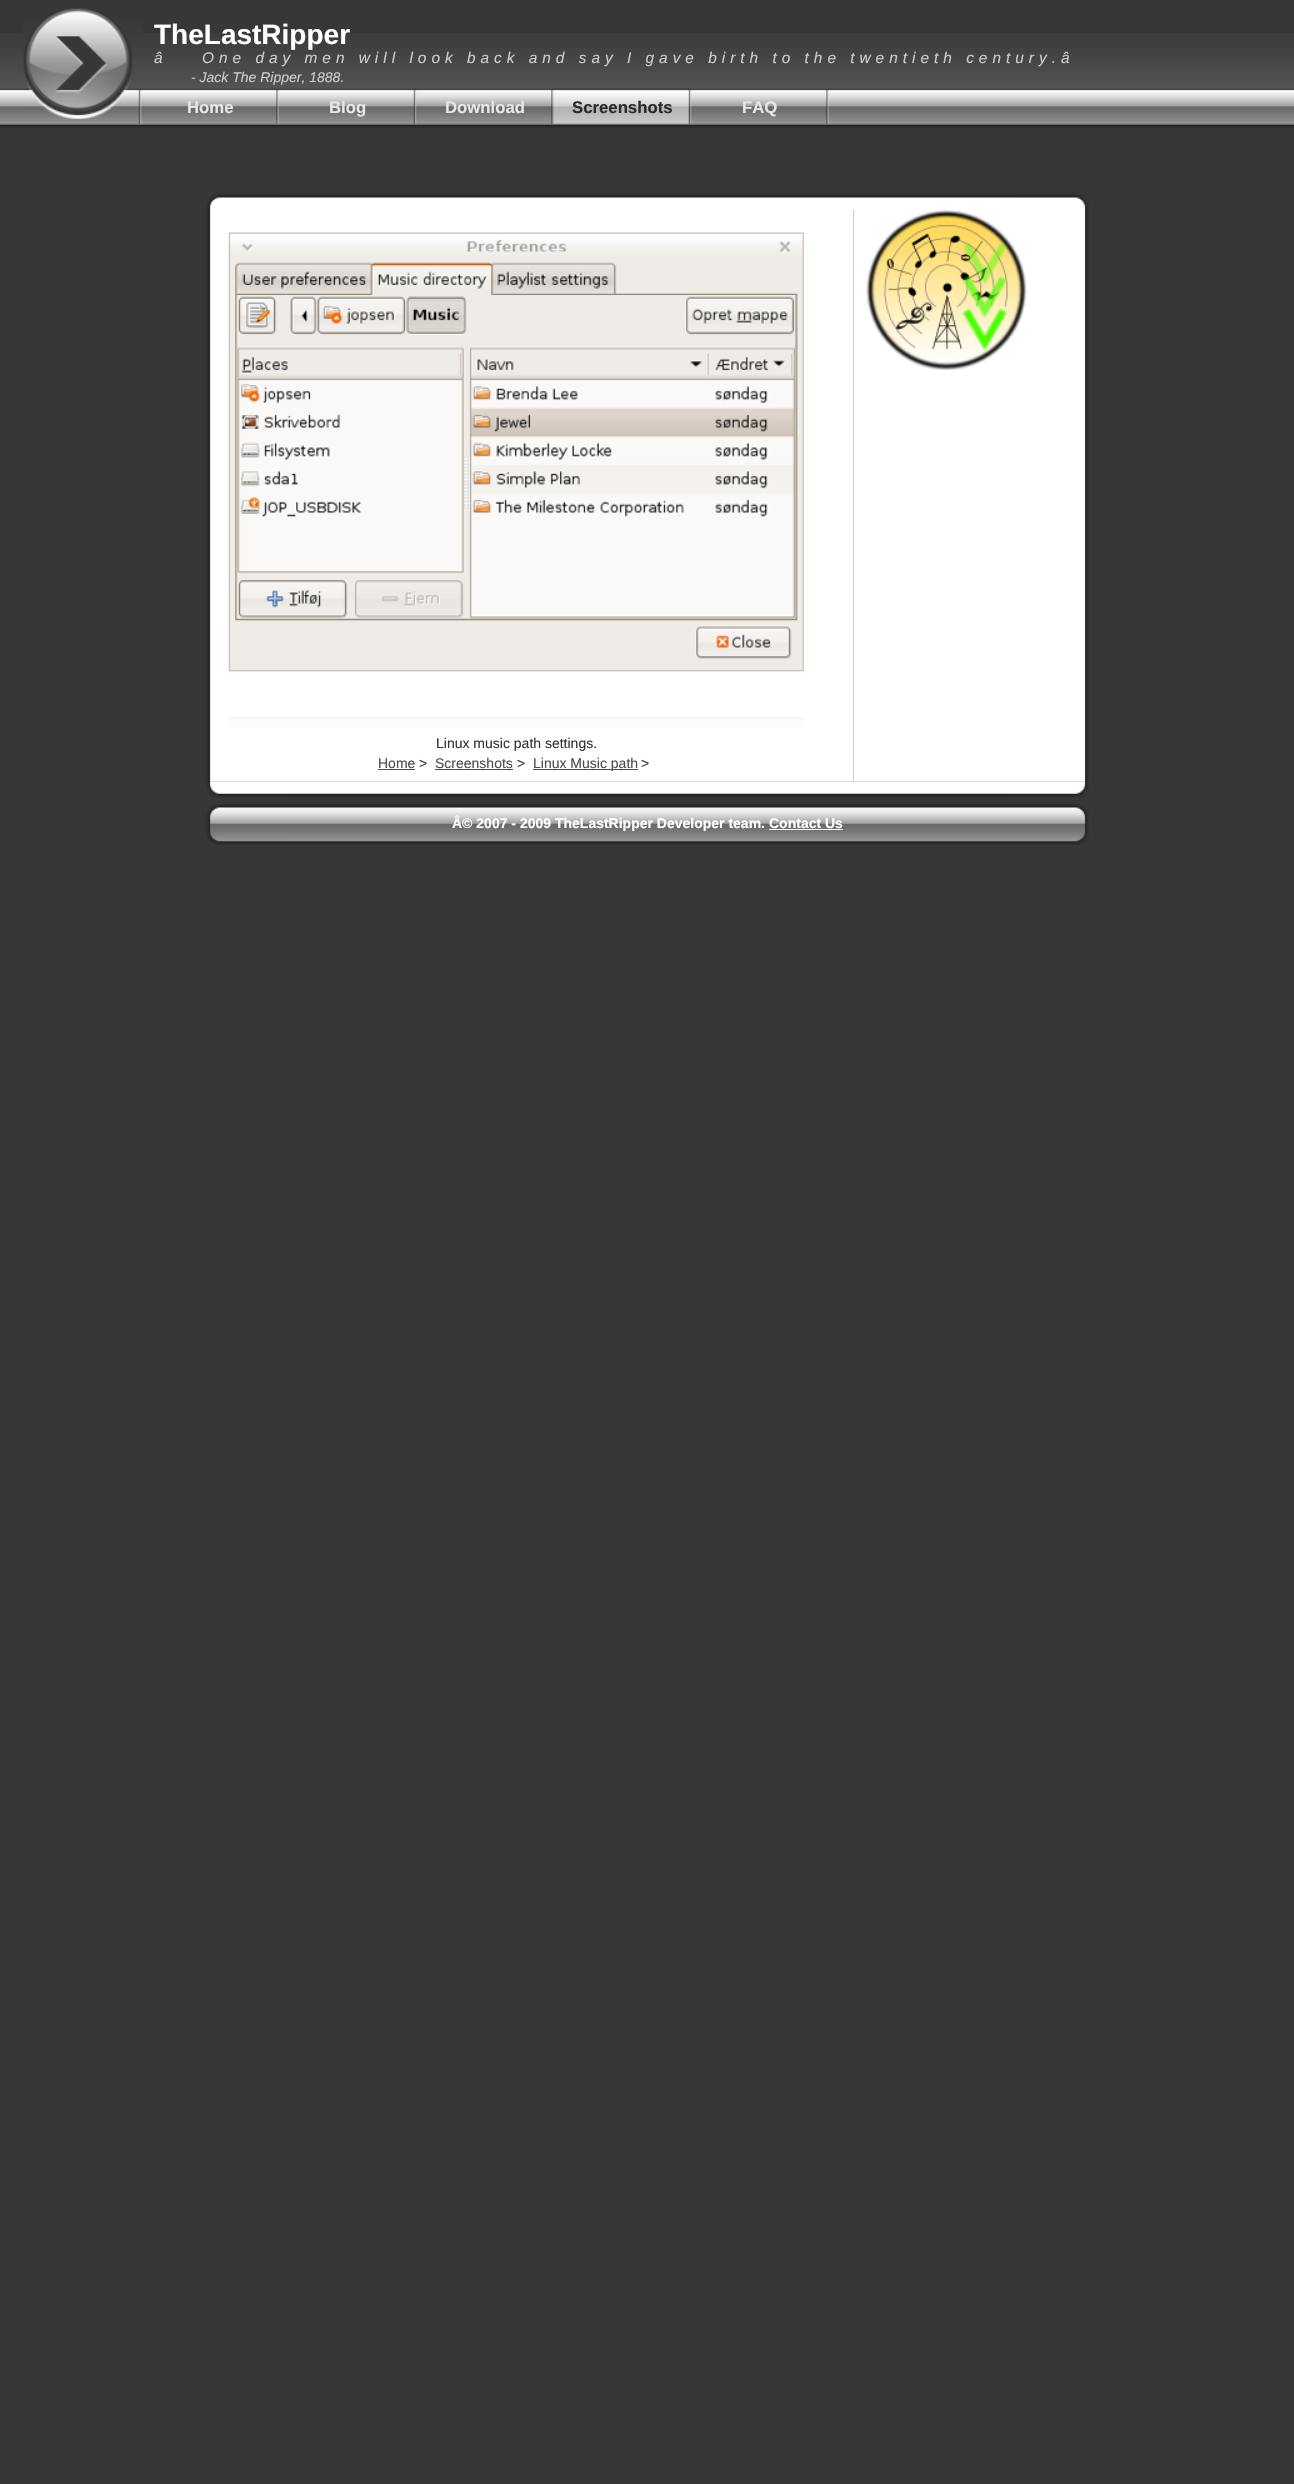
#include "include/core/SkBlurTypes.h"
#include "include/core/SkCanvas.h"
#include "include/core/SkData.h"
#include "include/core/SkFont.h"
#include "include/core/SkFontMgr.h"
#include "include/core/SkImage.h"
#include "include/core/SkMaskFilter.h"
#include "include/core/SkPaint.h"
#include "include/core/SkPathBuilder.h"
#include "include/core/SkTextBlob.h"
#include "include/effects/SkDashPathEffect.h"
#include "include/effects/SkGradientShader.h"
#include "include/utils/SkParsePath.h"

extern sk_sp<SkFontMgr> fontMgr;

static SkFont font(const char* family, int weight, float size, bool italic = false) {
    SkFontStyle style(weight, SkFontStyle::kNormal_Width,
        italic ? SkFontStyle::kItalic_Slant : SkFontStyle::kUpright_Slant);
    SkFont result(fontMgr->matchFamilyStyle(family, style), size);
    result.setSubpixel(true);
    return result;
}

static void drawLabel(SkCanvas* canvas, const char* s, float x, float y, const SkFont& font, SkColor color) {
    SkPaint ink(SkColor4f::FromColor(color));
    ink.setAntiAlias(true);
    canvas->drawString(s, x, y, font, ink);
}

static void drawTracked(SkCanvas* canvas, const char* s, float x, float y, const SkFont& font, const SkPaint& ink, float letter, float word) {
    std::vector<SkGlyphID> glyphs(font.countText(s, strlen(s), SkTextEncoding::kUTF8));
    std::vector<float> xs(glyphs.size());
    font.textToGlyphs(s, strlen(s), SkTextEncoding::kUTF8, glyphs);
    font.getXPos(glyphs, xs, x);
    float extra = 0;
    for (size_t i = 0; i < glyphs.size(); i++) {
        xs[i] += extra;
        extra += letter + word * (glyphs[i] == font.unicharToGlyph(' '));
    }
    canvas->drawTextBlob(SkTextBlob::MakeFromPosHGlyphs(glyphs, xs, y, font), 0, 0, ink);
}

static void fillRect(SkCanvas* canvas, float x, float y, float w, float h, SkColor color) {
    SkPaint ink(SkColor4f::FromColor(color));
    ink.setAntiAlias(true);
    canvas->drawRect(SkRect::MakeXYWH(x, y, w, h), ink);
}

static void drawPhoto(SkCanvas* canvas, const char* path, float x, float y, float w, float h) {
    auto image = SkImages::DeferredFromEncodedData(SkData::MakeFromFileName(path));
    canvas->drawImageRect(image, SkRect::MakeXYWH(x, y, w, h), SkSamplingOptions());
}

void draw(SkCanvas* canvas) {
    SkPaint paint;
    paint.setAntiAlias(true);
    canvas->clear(0xFF373737);
    drawPhoto(canvas, "assets/img1.png", 0, 33, 1294, 95);
    drawPhoto(canvas, "assets/img2.png", 23, 8, 119, 116);
    SkFont font1 = font("Liberation Sans", 700, 28);
    drawLabel(canvas, "TheLastRipper", 154, 44, font1, 0xFFFFFFFF);
    SkFont font2 = font("Liberation Sans", 400, 15.4f, true);
    paint.setColor(0xFFCCCCCC);
    drawTracked(canvas, "â", 154, 63, font2, paint, 5, 0);
    drawTracked(canvas, "One day men will look back and say I gave birth to the twentieth century.â", 202, 63, font2, paint, 5, 0);
    SkFont font3 = font("Liberation Sans", 400, 14, true);
    drawLabel(canvas, "- Jack The Ripper, 1888.", 191, 82, font3, 0xFFCCCCCC);
    drawPhoto(canvas, "assets/img3.png", 276, 88, 3, 36);
    SkFont font4 = font("Liberation Sans", 700, 16.75f);
    drawLabel(canvas, "Home", 187, 113, font4, 0xFFE6E6E6);
    drawPhoto(canvas, "assets/img4.png", 413, 88, 4, 36);
    drawLabel(canvas, "Blog", 329, 113, font4, 0xFFE6E6E6);
    drawPhoto(canvas, "assets/img3.png", 551, 88, 3, 36);
    drawLabel(canvas, "Download", 445, 113, font4, 0xFFE6E6E6);
    drawPhoto(canvas, "assets/img5.png", 553, 88, 139, 36);
    drawLabel(canvas, "Screenshots", 572, 113, font4, 0xFF2A2A2A);
    drawPhoto(canvas, "assets/img3.png", 826, 88, 3, 36);
    drawLabel(canvas, "FAQ", 742, 113, font4, 0xFFE6E6E6);
    drawPhoto(canvas, "assets/img6.png", 206, 208, 883, 574);
    drawPhoto(canvas, "assets/img7.png", 206, 190, 883, 18);
    drawPhoto(canvas, "assets/img8.png", 866, 210, 161, 160);
    fillRect(canvas, 853, 210, 1, 571, 0xFFCCCCCC);
    drawPhoto(canvas, "assets/img9.png", 228, 232, 576, 495);
    SkFont font5 = font("Liberation Sans", 400, 14);
    drawLabel(canvas, "Linux music path settings.", 436, 748, font5, 0xFF333333);
    drawLabel(canvas, "Home", 378, 768, font5, 0xFF4C4C4C);
    fillRect(canvas, 378, 769, 37, 1, 0xFF4C4C4C);
    drawLabel(canvas, ">", 419, 768, font5, 0xFF333333);
    drawLabel(canvas, "Screenshots", 435, 768, font5, 0xFF4C4C4C);
    fillRect(canvas, 435, 769, 78, 1, 0xFF4C4C4C);
    drawLabel(canvas, ">", 517, 768, font5, 0xFF333333);
    fillRect(canvas, 533, 769, 105, 1, 0xFF4C4C4C);
    drawLabel(canvas, "Linux Music path", 533, 768, font5, 0xFF4C4C4C);
    drawLabel(canvas, ">", 641, 768, font5, 0xFF333333);
    drawPhoto(canvas, "assets/img10.png", 206, 781, 883, 17);
    drawPhoto(canvas, "assets/img11.png", 206, 804, 883, 41);
    SkFont font6 = font("Liberation Sans", 700, 14);
    drawLabel(canvas, "Â© 2007 - 2009 TheLastRipper Developer team.", 452, 828, font6, 0xFFFFFFFF);
    drawLabel(canvas, "Contact Us", 769, 828, font6, 0xFFFFFFFF);
    fillRect(canvas, 769, 829, 74, 1, 0xFFFAFAFA);
}
